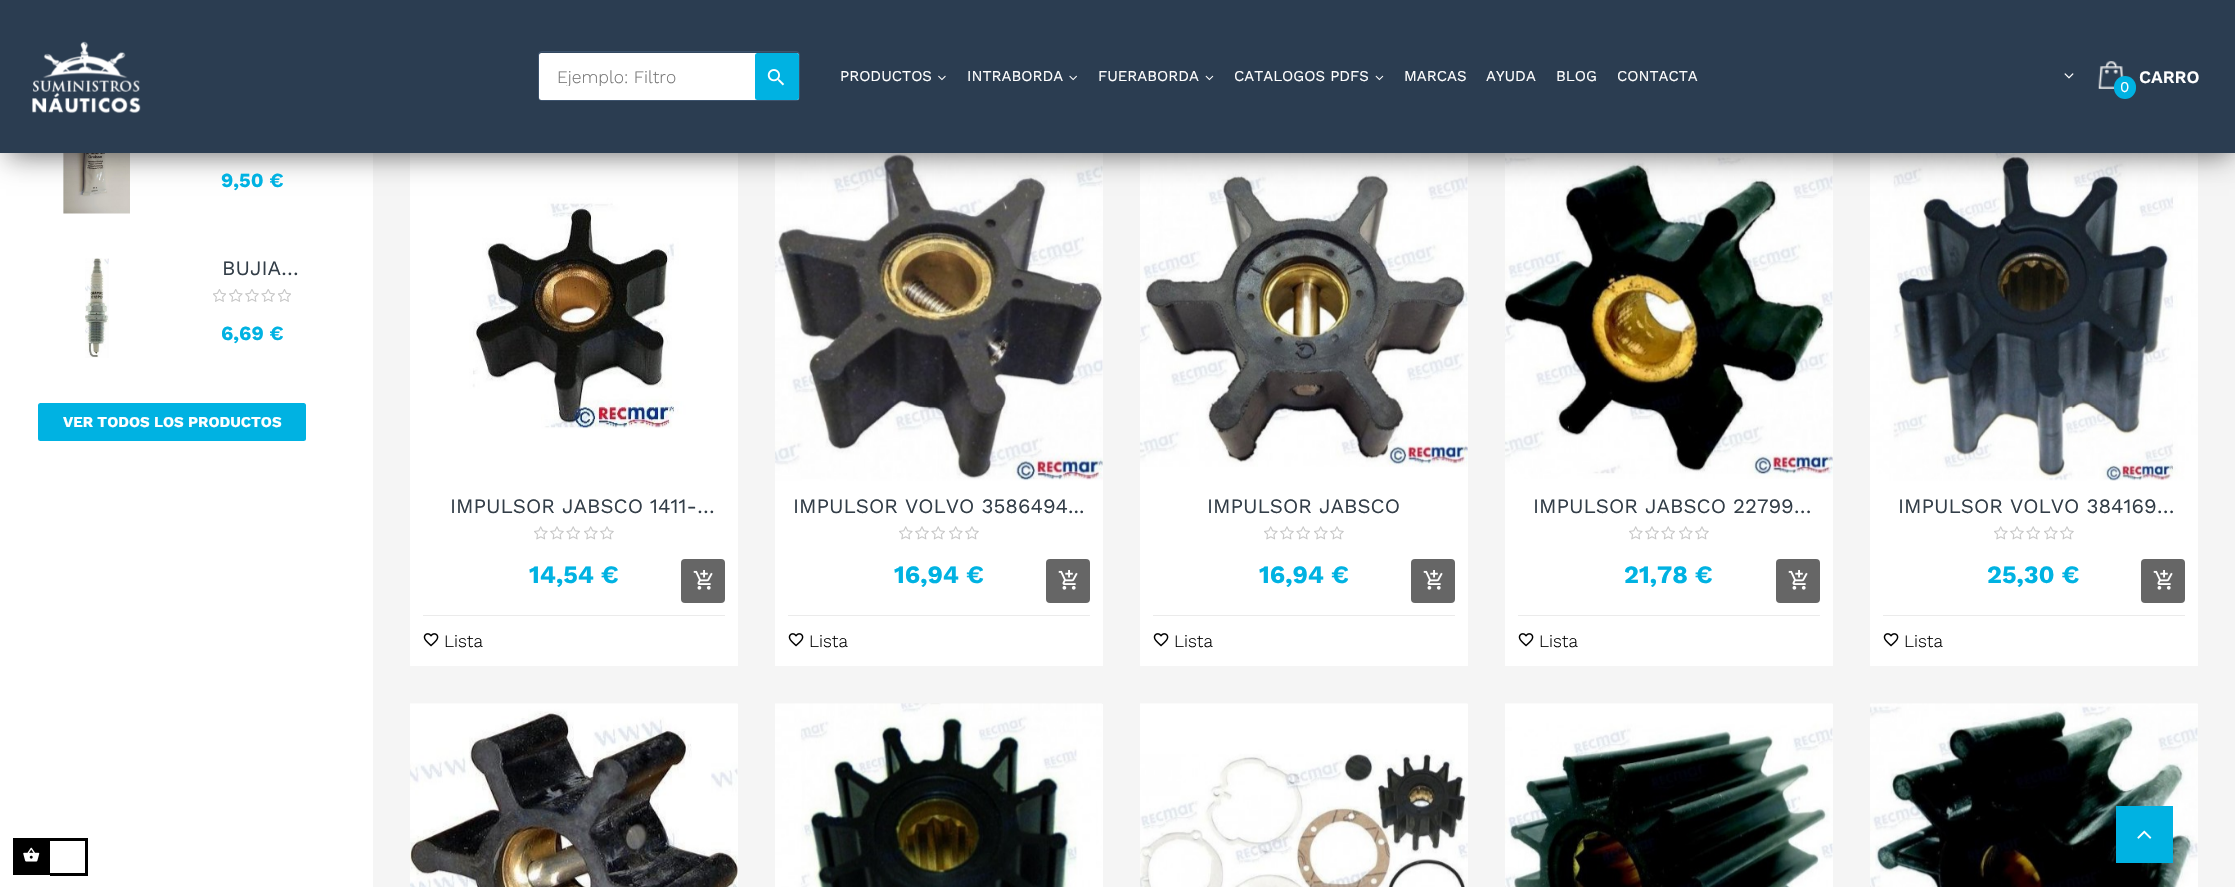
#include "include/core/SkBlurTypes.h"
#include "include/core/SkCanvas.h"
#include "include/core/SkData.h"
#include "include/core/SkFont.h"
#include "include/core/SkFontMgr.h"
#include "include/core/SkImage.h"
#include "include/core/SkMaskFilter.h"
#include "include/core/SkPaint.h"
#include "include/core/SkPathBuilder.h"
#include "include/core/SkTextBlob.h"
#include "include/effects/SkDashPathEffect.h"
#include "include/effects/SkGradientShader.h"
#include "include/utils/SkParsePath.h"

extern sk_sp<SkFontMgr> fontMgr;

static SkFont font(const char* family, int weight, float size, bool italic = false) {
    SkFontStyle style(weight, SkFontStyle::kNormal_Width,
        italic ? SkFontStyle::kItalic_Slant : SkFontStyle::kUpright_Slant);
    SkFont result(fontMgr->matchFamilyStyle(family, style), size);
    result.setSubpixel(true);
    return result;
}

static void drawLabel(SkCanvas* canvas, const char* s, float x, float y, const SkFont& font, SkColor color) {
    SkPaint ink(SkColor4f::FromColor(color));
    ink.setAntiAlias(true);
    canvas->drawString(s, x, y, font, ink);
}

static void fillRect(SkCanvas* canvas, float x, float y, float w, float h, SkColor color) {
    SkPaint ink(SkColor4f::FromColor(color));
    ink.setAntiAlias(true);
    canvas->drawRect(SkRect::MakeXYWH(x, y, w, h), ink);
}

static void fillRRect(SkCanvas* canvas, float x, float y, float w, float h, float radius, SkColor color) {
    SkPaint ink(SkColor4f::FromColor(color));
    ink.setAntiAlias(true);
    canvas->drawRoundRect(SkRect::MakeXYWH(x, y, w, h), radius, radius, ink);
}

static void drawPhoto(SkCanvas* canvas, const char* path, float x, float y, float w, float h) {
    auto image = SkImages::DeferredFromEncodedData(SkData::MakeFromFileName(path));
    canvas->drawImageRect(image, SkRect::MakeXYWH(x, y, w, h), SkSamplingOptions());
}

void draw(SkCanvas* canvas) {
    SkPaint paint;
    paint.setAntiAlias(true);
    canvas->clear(0xFFFFFFFF);
    drawPhoto(canvas, "assets/img8.png", 63, 153, 67, 61);
    fillRect(canvas, 373, 153, 1862, 734, 0xFFF5F5F5);
    fillRect(canvas, 410, 153, 328, 513, 0xFFFFFFFF);
    drawPhoto(canvas, "assets/img14.png", 410, 153, 328, 276);
    fillRect(canvas, 775, 153, 328, 513, 0xFFFFFFFF);
    drawPhoto(canvas, "assets/img20.png", 775, 153, 328, 328);
    fillRect(canvas, 1140, 153, 328, 513, 0xFFFFFFFF);
    drawPhoto(canvas, "assets/img21.png", 1140, 153, 328, 314);
    fillRect(canvas, 1505, 153, 328, 513, 0xFFFFFFFF);
    drawPhoto(canvas, "assets/img22.png", 1505, 153, 328, 326);
    fillRect(canvas, 1870, 153, 328, 513, 0xFFFFFFFF);
    drawPhoto(canvas, "assets/img23.png", 1870, 153, 328, 328);
    paint.setColor(0x59000000);
    paint.setMaskFilter(SkMaskFilter::MakeBlur(kNormal_SkBlurStyle, 12.5f));
    canvas->drawRect(SkRect::MakeXYWH(19, 6, 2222, 140), paint);
    paint.setMaskFilter(nullptr);
    paint.setMaskFilter(SkMaskFilter::MakeBlur(kNormal_SkBlurStyle, 12.5f));
    canvas->drawRect(SkRect::MakeXYWH(6, 19, 2223, 140), paint);
    paint.setMaskFilter(nullptr);
    fillRect(canvas, 0, 0, 2235, 153, 0xFF2B3D51);
    drawPhoto(canvas, "assets/img1.png", 32, 41, 109, 72);
    paint.setColor(0xFF334860);
    canvas->drawRoundRect(SkRect::MakeXYWH(538.5f, 51.5f, 261, 49), 3.5f, 3.5f, paint);
    paint.setStroke(true);
    paint.setStrokeWidth(1);
    paint.setColor(0xFF3D536D);
    canvas->drawRoundRect(SkRect::MakeXYWH(538.5f, 51.5f, 261, 49), 3.5f, 3.5f, paint);
    fillRRect(canvas, 539, 53, 260, 47, 2.5f, 0xFFFFFFFF);
    canvas->save();
    canvas->clipRect(SkRect::MakeXYWH(558, 66, 185, 20));
    SkFont font1 = font("Work Sans", 300, 17.5f);
    drawLabel(canvas, "Ejemplo: Filtro", 557, 83, font1, 0xFF757575);
    canvas->restore();
    fillRRect(canvas, 755, 53, 44, 47, 2.5f, 0xFF00B2E2);
    drawPhoto(canvas, "assets/img2.png", 767, 69, 18, 17);
    SkFont font2 = font("Work Sans", 400, 15);
    drawLabel(canvas, "PRODUCTOS", 840, 81, font2, 0xFFFFFFFF);
    drawPhoto(canvas, "assets/img3.png", 938, 75, 8, 6);
    drawLabel(canvas, "INTRABORDA", 967, 81, font2, 0xFFFFFFFF);
    drawPhoto(canvas, "assets/img4.png", 1069, 75, 8, 6);
    drawLabel(canvas, "FUERABORDA", 1098, 81, font2, 0xFFFFFFFF);
    drawPhoto(canvas, "assets/img5.png", 1205, 75, 9, 6);
    drawLabel(canvas, "CATALOGOS PDFS", 1234, 81, font2, 0xFFFFFFFF);
    drawPhoto(canvas, "assets/img5.png", 1375, 75, 9, 6);
    drawLabel(canvas, "MARCAS", 1404, 81, font2, 0xFFFFFFFF);
    drawLabel(canvas, "AYUDA", 1486, 81, font2, 0xFFFFFFFF);
    drawLabel(canvas, "BLOG", 1556, 81, font2, 0xFFFFFFFF);
    drawLabel(canvas, "CONTACTA", 1617, 81, font2, 0xFFFFFFFF);
    drawPhoto(canvas, "assets/img6.png", 2064, 73, 10, 6);
    drawPhoto(canvas, "assets/img7.png", 2098, 61, 26, 28);
    SkFont font3 = font("Work Sans", 600, 17.5f);
    drawLabel(canvas, "CARRO", 2139, 83, font3, 0xFFFFFFFF);
    fillRRect(canvas, 2114, 76, 22, 23, 11, 0xFF00B2E2);
    drawLabel(canvas, "0", 2120, 92, font2, 0xFFFFFFFF);
    SkFont font4 = font("Work Sans", 700, 20);
    drawLabel(canvas, "9,50 €", 221, 187, font4, 0xFF00B2E2);
    drawPhoto(canvas, "assets/img9.png", 85, 258, 24, 100);
    SkFont font5 = font("Work Sans", 400, 20.5f);
    drawLabel(canvas, "BUJIA…", 222, 275, font5, 0xFF333E48);
    drawPhoto(canvas, "assets/img10.png", 213, 289, 13, 13);
    drawPhoto(canvas, "assets/img11.png", 229, 289, 14, 13);
    drawPhoto(canvas, "assets/img12.png", 245, 289, 14, 13);
    drawPhoto(canvas, "assets/img13.png", 261, 289, 14, 13);
    drawPhoto(canvas, "assets/img10.png", 278, 289, 13, 13);
    drawLabel(canvas, "6,69 €", 221, 340, font4, 0xFF00B2E2);
    fillRRect(canvas, 38, 403, 268, 38, 2.5f, 0xFF00B2E2);
    SkFont font6 = font("Work Sans", 700, 15);
    drawLabel(canvas, "VER TODOS LOS PRODUCTOS", 63, 427, font6, 0xFFFFFFFF);
    drawLabel(canvas, "IMPULSOR JABSCO 1411-…", 450, 513, font5, 0xFF333E48);
    drawPhoto(canvas, "assets/img15.png", 534, 526, 14, 14);
    drawPhoto(canvas, "assets/img16.png", 550, 526, 14, 14);
    drawPhoto(canvas, "assets/img17.png", 566, 526, 14, 14);
    drawPhoto(canvas, "assets/img15.png", 584, 526, 14, 14);
    drawPhoto(canvas, "assets/img16.png", 600, 526, 14, 14);
    SkFont font7 = font("Work Sans", 700, 25);
    drawLabel(canvas, "14,54 €", 529, 583, font7, 0xFF00B2E2);
    fillRRect(canvas, 681, 559, 44, 44, 4, 0xFF666666);
    drawPhoto(canvas, "assets/img18.png", 693, 570, 20, 20);
    fillRect(canvas, 423, 615, 302, 1, 0xFFEBEBEB);
    drawPhoto(canvas, "assets/img19.png", 423, 633, 16, 14);
    drawLabel(canvas, "Lista", 444, 647, font1, 0xFF000000);
    drawLabel(canvas, "IMPULSOR VOLVO 3586494...", 793, 513, font5, 0xFF333E48);
    drawPhoto(canvas, "assets/img15.png", 899, 526, 14, 14);
    drawPhoto(canvas, "assets/img16.png", 915, 526, 14, 14);
    drawPhoto(canvas, "assets/img17.png", 931, 526, 14, 14);
    drawPhoto(canvas, "assets/img15.png", 949, 526, 14, 14);
    drawPhoto(canvas, "assets/img16.png", 965, 526, 14, 14);
    drawLabel(canvas, "16,94 €", 894, 583, font7, 0xFF00B2E2);
    fillRRect(canvas, 1046, 559, 44, 44, 4, 0xFF666666);
    drawPhoto(canvas, "assets/img18.png", 1058, 570, 20, 20);
    fillRect(canvas, 788, 615, 302, 1, 0xFFEBEBEB);
    drawPhoto(canvas, "assets/img19.png", 788, 633, 16, 14);
    drawLabel(canvas, "Lista", 809, 647, font1, 0xFF000000);
    drawLabel(canvas, "IMPULSOR JABSCO", 1207, 513, font5, 0xFF333E48);
    drawPhoto(canvas, "assets/img15.png", 1264, 526, 14, 14);
    drawPhoto(canvas, "assets/img16.png", 1280, 526, 14, 14);
    drawPhoto(canvas, "assets/img17.png", 1296, 526, 14, 14);
    drawPhoto(canvas, "assets/img15.png", 1314, 526, 14, 14);
    drawPhoto(canvas, "assets/img16.png", 1330, 526, 14, 14);
    drawLabel(canvas, "16,94 €", 1259, 583, font7, 0xFF00B2E2);
    fillRRect(canvas, 1411, 559, 44, 44, 4, 0xFF666666);
    drawPhoto(canvas, "assets/img18.png", 1423, 570, 20, 20);
    fillRect(canvas, 1153, 615, 302, 1, 0xFFEBEBEB);
    drawPhoto(canvas, "assets/img19.png", 1153, 633, 16, 14);
    drawLabel(canvas, "Lista", 1174, 647, font1, 0xFF000000);
    drawLabel(canvas, "IMPULSOR JABSCO 22799…", 1533, 513, font5, 0xFF333E48);
    drawPhoto(canvas, "assets/img15.png", 1629, 526, 14, 14);
    drawPhoto(canvas, "assets/img16.png", 1645, 526, 14, 14);
    drawPhoto(canvas, "assets/img17.png", 1661, 526, 14, 14);
    drawPhoto(canvas, "assets/img15.png", 1679, 526, 14, 14);
    drawPhoto(canvas, "assets/img16.png", 1695, 526, 14, 14);
    drawLabel(canvas, "21,78 €", 1624, 583, font7, 0xFF00B2E2);
    fillRRect(canvas, 1776, 559, 44, 44, 4, 0xFF666666);
    drawPhoto(canvas, "assets/img18.png", 1788, 570, 20, 20);
    fillRect(canvas, 1518, 615, 302, 1, 0xFFEBEBEB);
    drawPhoto(canvas, "assets/img19.png", 1518, 633, 16, 14);
    drawLabel(canvas, "Lista", 1539, 647, font1, 0xFF000000);
    drawLabel(canvas, "IMPULSOR VOLVO 384169…", 1898, 513, font5, 0xFF333E48);
    drawPhoto(canvas, "assets/img15.png", 1994, 526, 14, 14);
    drawPhoto(canvas, "assets/img16.png", 2010, 526, 14, 14);
    drawPhoto(canvas, "assets/img17.png", 2026, 526, 14, 14);
    drawPhoto(canvas, "assets/img15.png", 2044, 526, 14, 14);
    drawPhoto(canvas, "assets/img16.png", 2060, 526, 14, 14);
    drawLabel(canvas, "25,30 €", 1987, 583, font7, 0xFF00B2E2);
    fillRRect(canvas, 2141, 559, 44, 44, 4, 0xFF666666);
    drawPhoto(canvas, "assets/img18.png", 2153, 570, 20, 20);
    fillRect(canvas, 1883, 615, 302, 1, 0xFFEBEBEB);
    drawPhoto(canvas, "assets/img19.png", 1883, 633, 16, 14);
    drawLabel(canvas, "Lista", 1904, 647, font1, 0xFF000000);
    fillRect(canvas, 410, 704, 328, 183, 0xFFFFFFFF);
    drawPhoto(canvas, "assets/img24.png", 410, 703, 328, 184);
    fillRect(canvas, 775, 704, 328, 183, 0xFFFFFFFF);
    drawPhoto(canvas, "assets/img25.png", 775, 703, 327, 184);
    fillRect(canvas, 1140, 704, 328, 183, 0xFFFFFFFF);
    drawPhoto(canvas, "assets/img26.png", 1140, 703, 328, 184);
    fillRect(canvas, 1505, 704, 328, 183, 0xFFFFFFFF);
    drawPhoto(canvas, "assets/img27.png", 1505, 703, 328, 184);
    fillRect(canvas, 1870, 704, 328, 183, 0xFFFFFFFF);
    drawPhoto(canvas, "assets/img28.png", 1870, 703, 328, 184);
    fillRect(canvas, 2116, 806, 57, 57, 0xFF00B2E2);
    drawPhoto(canvas, "assets/img29.png", 2137, 830, 15, 9);
    fillRect(canvas, 13, 838, 75, 37, 0xFF000000);
    drawPhoto(canvas, "assets/img30.png", 23, 847, 17, 15);
    fillRect(canvas, 50, 841, 35, 32, 0xFFFFFFFF);
    fillRect(canvas, 50, 875, 38, 1, 0xFF000000);
}
